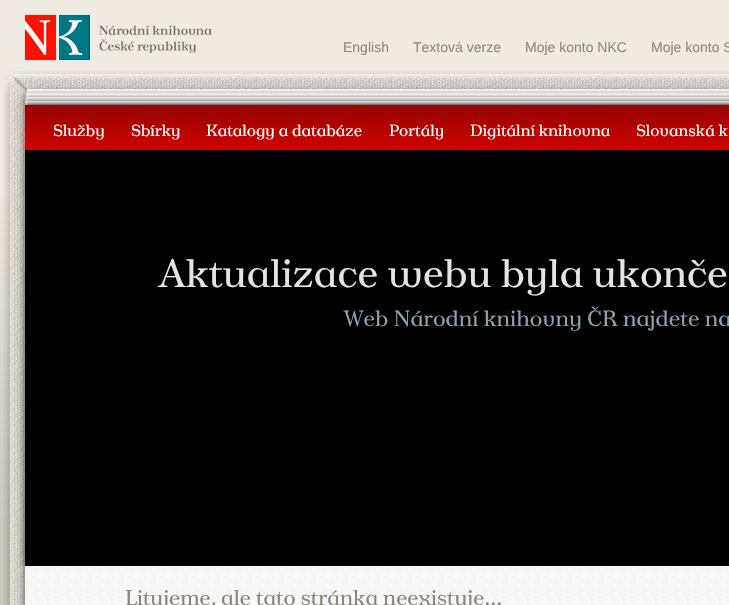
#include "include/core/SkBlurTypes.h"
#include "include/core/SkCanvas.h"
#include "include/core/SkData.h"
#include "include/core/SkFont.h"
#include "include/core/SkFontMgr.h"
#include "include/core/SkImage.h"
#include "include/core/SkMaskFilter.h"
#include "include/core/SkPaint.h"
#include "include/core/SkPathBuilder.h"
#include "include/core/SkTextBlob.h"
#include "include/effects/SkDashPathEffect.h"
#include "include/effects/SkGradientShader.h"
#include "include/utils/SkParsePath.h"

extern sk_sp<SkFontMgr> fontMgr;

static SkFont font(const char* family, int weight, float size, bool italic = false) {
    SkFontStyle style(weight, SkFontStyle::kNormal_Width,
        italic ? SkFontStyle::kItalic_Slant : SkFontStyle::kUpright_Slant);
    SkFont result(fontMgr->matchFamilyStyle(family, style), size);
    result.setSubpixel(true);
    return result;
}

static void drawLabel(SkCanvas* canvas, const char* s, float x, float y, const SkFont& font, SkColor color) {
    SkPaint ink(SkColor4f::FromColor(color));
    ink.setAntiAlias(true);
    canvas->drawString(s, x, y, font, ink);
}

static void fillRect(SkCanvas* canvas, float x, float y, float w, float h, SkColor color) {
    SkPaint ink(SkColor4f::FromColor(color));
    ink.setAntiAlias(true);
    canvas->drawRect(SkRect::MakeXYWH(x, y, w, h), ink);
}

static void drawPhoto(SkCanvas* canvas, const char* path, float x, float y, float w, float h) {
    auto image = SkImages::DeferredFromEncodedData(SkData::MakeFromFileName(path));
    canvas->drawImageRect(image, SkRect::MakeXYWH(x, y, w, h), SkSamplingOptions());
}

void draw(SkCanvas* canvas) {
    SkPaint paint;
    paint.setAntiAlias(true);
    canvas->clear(0xFFEFEAE2);
    drawPhoto(canvas, "assets/img1.png", 0, 199, 10, 406);
    drawPhoto(canvas, "assets/img2.png", 3, 71, 22, 495);
    drawPhoto(canvas, "assets/img3.png", 25, 15, 187, 45);
    SkFont font1 = font("Liberation Sans", 400, 14);
    drawLabel(canvas, "English", 343, 52, font1, 0xFF8D897F);
    drawLabel(canvas, "Textová verze", 413, 52, font1, 0xFF8D897F);
    drawLabel(canvas, "Moje konto NKC", 525, 52, font1, 0xFF8D897F);
    drawLabel(canvas, "Moje konto S", 651, 52, font1, 0xFF8D897F);
    drawPhoto(canvas, "assets/img4.png", 25, 71, 704, 34);
    drawPhoto(canvas, "assets/img5.png", 25, 105, 704, 45);
    SkFont font2 = font("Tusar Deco", 400, 16);
    drawLabel(canvas, "Služby", 53, 136, font2, 0xFFFFFFFF);
    drawLabel(canvas, "Sbírky", 131, 136, font2, 0xFFFFFFFF);
    drawLabel(canvas, "Katalogy a databáze", 206, 136, font2, 0xFFFFFFFF);
    drawLabel(canvas, "Portály", 389, 136, font2, 0xFFFFFFFF);
    drawLabel(canvas, "Digitální knihovna", 470, 136, font2, 0xFFFFFFFF);
    drawLabel(canvas, "Slovanská k", 636, 136, font2, 0xFFFFFFFF);
    fillRect(canvas, 25, 150, 704, 416, 0xFF000000);
    SkFont font3 = font("Tusar Deco", 400, 39.6f);
    drawLabel(canvas, "Aktualizace webu byla ukonče", 159, 287, font3, 0xFFE4E4E4);
    SkFont font4 = font("Tusar Deco", 400, 22);
    drawLabel(canvas, "Web Národní knihovny ČR najdete na", 344, 326, font4, 0xFF8CA2AF);
    drawPhoto(canvas, "assets/img6.png", 3, 566, 22, 39);
    drawPhoto(canvas, "assets/img7.png", 25, 566, 704, 39);
    SkFont font5 = font("Tusar Deco", 400, 21.25f);
    drawLabel(canvas, "Litujeme, ale tato stránka neexistuje...", 125, 605, font5, 0xFF8B8477);
}
